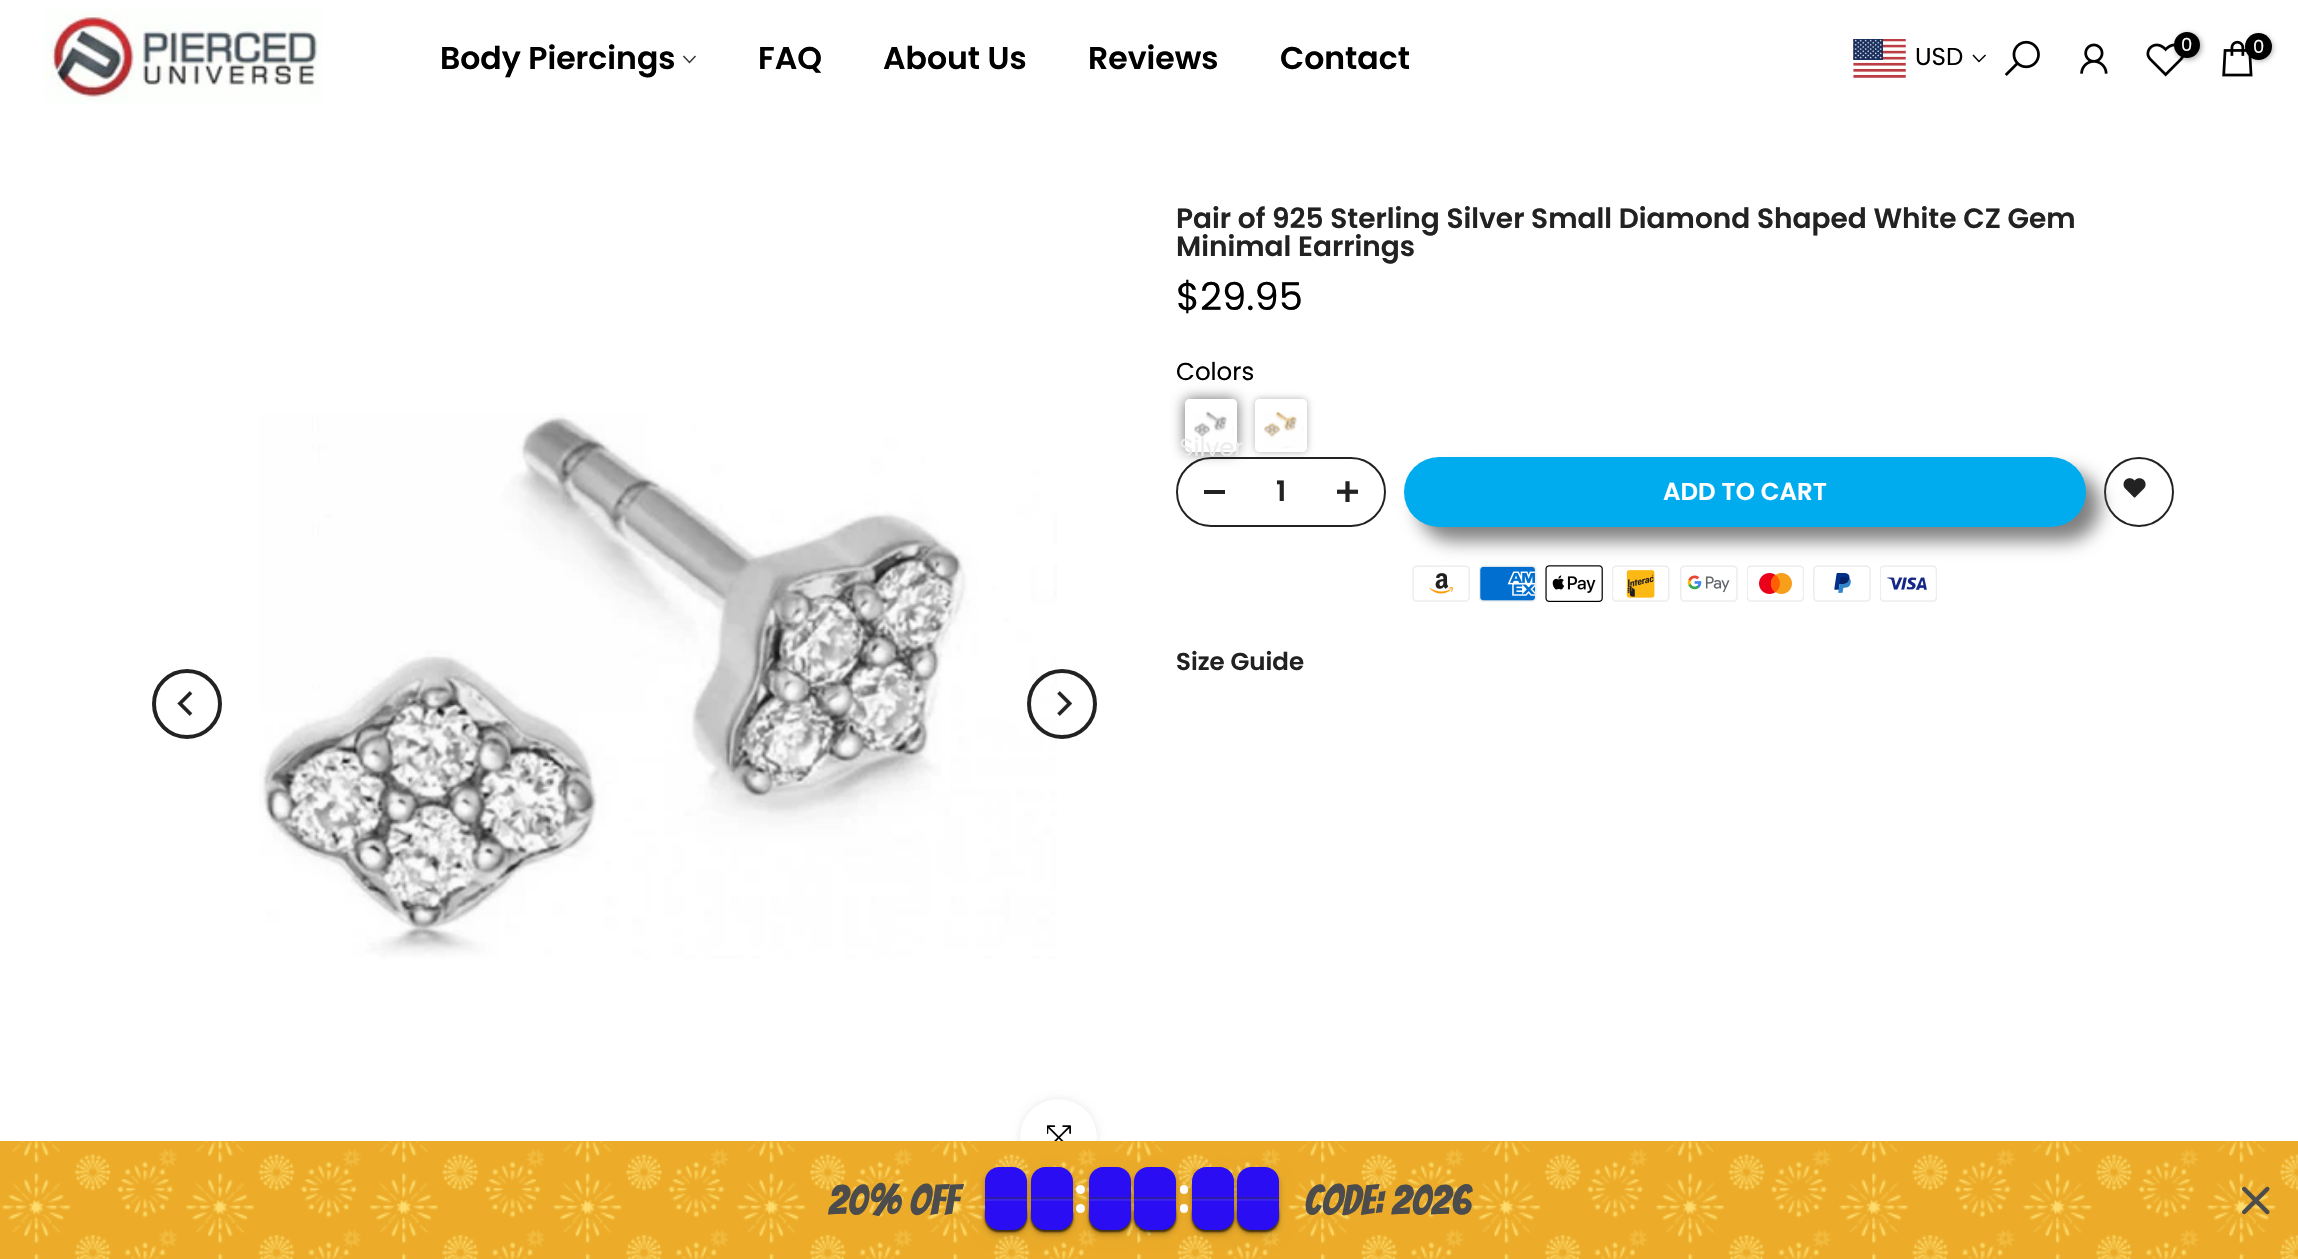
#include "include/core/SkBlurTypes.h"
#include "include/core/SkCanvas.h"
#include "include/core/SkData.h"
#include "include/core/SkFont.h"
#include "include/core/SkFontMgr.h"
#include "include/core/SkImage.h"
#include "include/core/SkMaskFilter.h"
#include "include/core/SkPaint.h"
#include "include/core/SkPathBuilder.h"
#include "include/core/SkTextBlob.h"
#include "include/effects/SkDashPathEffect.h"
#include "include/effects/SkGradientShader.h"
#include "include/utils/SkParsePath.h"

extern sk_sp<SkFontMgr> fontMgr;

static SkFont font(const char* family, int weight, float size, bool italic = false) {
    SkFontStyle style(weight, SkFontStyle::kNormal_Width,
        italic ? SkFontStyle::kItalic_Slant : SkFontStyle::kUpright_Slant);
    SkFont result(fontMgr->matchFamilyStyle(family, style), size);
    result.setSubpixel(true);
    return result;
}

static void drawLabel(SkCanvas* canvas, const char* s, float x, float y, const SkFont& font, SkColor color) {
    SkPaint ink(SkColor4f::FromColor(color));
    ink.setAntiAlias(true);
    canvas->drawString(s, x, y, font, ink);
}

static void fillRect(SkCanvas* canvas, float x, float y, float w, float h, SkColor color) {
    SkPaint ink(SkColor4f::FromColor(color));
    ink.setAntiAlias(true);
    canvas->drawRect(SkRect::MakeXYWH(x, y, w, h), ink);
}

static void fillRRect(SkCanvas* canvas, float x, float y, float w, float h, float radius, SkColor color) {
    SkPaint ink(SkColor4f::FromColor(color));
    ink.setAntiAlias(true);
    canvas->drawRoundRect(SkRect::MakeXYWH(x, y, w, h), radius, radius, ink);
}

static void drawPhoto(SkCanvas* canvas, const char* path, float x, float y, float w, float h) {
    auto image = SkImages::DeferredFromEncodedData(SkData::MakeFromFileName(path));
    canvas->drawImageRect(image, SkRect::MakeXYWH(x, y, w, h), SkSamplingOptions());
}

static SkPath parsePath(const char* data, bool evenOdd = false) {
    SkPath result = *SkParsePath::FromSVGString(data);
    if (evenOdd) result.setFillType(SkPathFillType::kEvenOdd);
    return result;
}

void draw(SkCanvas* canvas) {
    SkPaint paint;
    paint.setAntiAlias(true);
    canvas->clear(0xFFFFFFFF);
    drawPhoto(canvas, "assets/img1.png", 44, 9, 279, 96);
    SkFont font1 = font("Poppins", 600, 31.5f);
    drawLabel(canvas, "Body Piercings", 440, 69, font1, 0xFF000000);
    paint.setStroke(true);
    paint.setStrokeWidth(1.5f);
    paint.setStrokeCap(SkPaint::kSquare_Cap);
    paint.setColor(0xFF333333);
    canvas->drawPath(parsePath("M695 56.5L689.5 62.5L684 56.5"), paint);
    drawLabel(canvas, "FAQ", 758, 69, font1, 0xFF000000);
    drawLabel(canvas, "About Us", 883, 69, font1, 0xFF000000);
    drawLabel(canvas, "Reviews", 1088, 69, font1, 0xFF000000);
    drawLabel(canvas, "Contact", 1280, 69, font1, 0xFF000000);
    drawPhoto(canvas, "assets/img2.png", 1853, 39, 53, 39);
    SkFont font2 = font("Poppins", 400, 24.5f);
    drawLabel(canvas, "USD", 1915, 65, font2, 0xFF000000);
    paint.setColor(0xFF000000);
    canvas->drawPath(parsePath("M1985 55.5L1979 61.5L1973.5 55.5"), paint);
    drawPhoto(canvas, "assets/img3.png", 2004, 40, 36, 36);
    drawPhoto(canvas, "assets/img4.png", 2080, 43, 28, 31);
    drawPhoto(canvas, "assets/img5.png", 2146, 43, 38, 34);
    paint.setStroke(false);
    paint.setColor(0x4D000000);
    paint.setMaskFilter(SkMaskFilter::MakeBlur(kNormal_SkBlurStyle, 2.5f));
    canvas->drawRoundRect(SkRect::MakeXYWH(2175, 33, 27, 27), 13.5f, 13.5f, paint);
    paint.setMaskFilter(nullptr);
    paint.setColor(0xFF000000);
    canvas->drawCircle(2187, 45, 13, paint);
    SkFont font3 = font("Poppins", 400, 18);
    drawLabel(canvas, "0", 2181, 51, font3, 0xFFFFFFFF);
    drawPhoto(canvas, "assets/img6.png", 2222, 40, 31, 37);
    paint.setColor(0x4D000000);
    paint.setMaskFilter(SkMaskFilter::MakeBlur(kNormal_SkBlurStyle, 2.5f));
    canvas->drawRoundRect(SkRect::MakeXYWH(2247, 35, 26, 26), 13, 13, paint);
    paint.setMaskFilter(nullptr);
    paint.setColor(0xFF000000);
    canvas->drawCircle(2258.5f, 46.5f, 13.5f, paint);
    drawLabel(canvas, "0", 2253, 53, font3, 0xFFFFFFFF);
    paint.setStroke(true);
    paint.setStrokeWidth(4);
    paint.setStrokeCap(SkPaint::kButt_Cap);
    paint.setColor(0xFF222222);
    canvas->drawCircle(187, 704, 33, paint);
    drawPhoto(canvas, "assets/img7.png", 177, 691, 16, 25);
    drawPhoto(canvas, "assets/img8.png", 259, 413, 798, 546);
    canvas->drawCircle(1062, 704, 33, paint);
    drawPhoto(canvas, "assets/img9.png", 1057, 691, 16, 25);
    paint.setStroke(false);
    paint.setColor(0x17000000);
    paint.setMaskFilter(SkMaskFilter::MakeBlur(kNormal_SkBlurStyle, 4.5f));
    canvas->drawRoundRect(SkRect::MakeXYWH(1020, 1099, 77, 77), 38.5f, 38.5f, paint);
    paint.setMaskFilter(nullptr);
    paint.setColor(0xFFFFFFFF);
    canvas->drawCircle(1058.5f, 1137.5f, 38.5f, paint);
    drawPhoto(canvas, "assets/img10.png", 1047, 1125, 24, 16);
    SkFont font4 = font("Poppins", 600, 28);
    drawLabel(canvas, "Pair of 925 Sterling Silver Small Diamond Shaped White CZ Gem", 1176, 228, font4, 0xFF222222);
    drawLabel(canvas, "Minimal Earrings", 1176, 256, font4, 0xFF222222);
    SkFont font5 = font("Poppins", 400, 38.5f);
    drawLabel(canvas, "$29.95", 1176, 310, font5, 0xFF000000);
    drawLabel(canvas, "Colors", 1176, 380, font2, 0xFF000000);
    canvas->save();
    canvas->clipPath(parsePath("M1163 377H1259V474H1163ZM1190 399H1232C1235 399 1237 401 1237 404V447C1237 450 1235 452 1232 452H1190C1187 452 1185 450 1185 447V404C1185 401 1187 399 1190 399Z", true), true);
    paint.setColor(0x99000000);
    paint.setMaskFilter(SkMaskFilter::MakeBlur(kNormal_SkBlurStyle, 7));
    canvas->drawRoundRect(SkRect::MakeXYWH(1185, 399, 52, 53), 5, 5, paint);
    paint.setMaskFilter(nullptr);
    canvas->restore();
    paint.setStroke(true);
    paint.setColor(0xFFFFFFFF);
    canvas->drawRoundRect(SkRect::MakeXYWH(1187, 401, 48, 49), 3, 3, paint);
    drawPhoto(canvas, "assets/img11.png", 1194, 411, 40, 38);
    drawLabel(canvas, "Silver", 1179, 456, font2, 0xFFEDEDED);
    canvas->save();
    canvas->clipPath(parsePath("M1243 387H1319V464H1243ZM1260 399H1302C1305 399 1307 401 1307 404V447C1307 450 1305 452 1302 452H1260C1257 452 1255 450 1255 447V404C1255 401 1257 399 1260 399Z", true), true);
    paint.setStroke(false);
    paint.setColor(0x4D000000);
    paint.setMaskFilter(SkMaskFilter::MakeBlur(kNormal_SkBlurStyle, 3.5f));
    canvas->drawRoundRect(SkRect::MakeXYWH(1255, 399, 52, 53), 5, 5, paint);
    paint.setMaskFilter(nullptr);
    canvas->restore();
    paint.setStroke(true);
    paint.setColor(0xFFFFFFFF);
    canvas->drawRoundRect(SkRect::MakeXYWH(1257, 401, 48, 49), 3, 3, paint);
    drawPhoto(canvas, "assets/img12.png", 1264, 411, 40, 38);
    paint.setStrokeWidth(2);
    paint.setColor(0xFF222222);
    canvas->drawRoundRect(SkRect::MakeXYWH(1177, 458, 208, 68), 34, 34, paint);
    fillRect(canvas, 1204, 490, 21, 4, 0xFF222222);
    drawLabel(canvas, "1", 1276, 501, font4, 0xFF222222);
    drawPhoto(canvas, "assets/img13.png", 1337, 481, 21, 21);
    canvas->drawCircle(2139, 492, 34, paint);
    drawPhoto(canvas, "assets/img14.png", 2123, 478, 23, 20);
    drawPhoto(canvas, "assets/img15.png", 1412, 565, 58, 37);
    drawPhoto(canvas, "assets/img16.png", 1479, 565, 58, 37);
    drawPhoto(canvas, "assets/img17.png", 1545, 565, 58, 37);
    drawPhoto(canvas, "assets/img18.png", 1612, 565, 58, 37);
    drawPhoto(canvas, "assets/img19.png", 1680, 565, 58, 37);
    drawPhoto(canvas, "assets/img20.png", 1747, 565, 57, 37);
    drawPhoto(canvas, "assets/img21.png", 1813, 565, 58, 37);
    drawPhoto(canvas, "assets/img22.png", 1880, 565, 57, 37);
    paint.setStroke(false);
    paint.setColor(0xFF808080);
    paint.setMaskFilter(SkMaskFilter::MakeBlur(kNormal_SkBlurStyle, 9));
    canvas->drawRoundRect(SkRect::MakeXYWH(1418, 471, 682, 70), 35, 35, paint);
    paint.setMaskFilter(nullptr);
    fillRRect(canvas, 1404, 457, 682, 70, 35, 0xFF00ABEE);
    SkFont font6 = font("Poppins", 600, 24.5f);
    drawLabel(canvas, "ADD TO CART", 1663, 500, font6, 0xFFFFFFFF);
    drawLabel(canvas, "Size Guide", 1176, 670, font6, 0xFF222222);
    drawPhoto(canvas, "assets/img23.png", 0, 1141, 2298, 118);
    SkFont font7 = font("Bangers", 400, 42);
    drawLabel(canvas, "20% OFF", 828, 1215, font7, 0xFF4C4C4C);
    paint.setColor(0x0D000000);
    paint.setMaskFilter(SkMaskFilter::MakeBlur(kNormal_SkBlurStyle, 7));
    canvas->drawRoundRect(SkRect::MakeXYWH(985, 1173, 42, 63), 14, 14, paint);
    paint.setMaskFilter(nullptr);
    paint.setColor(0x3D000000);
    paint.setMaskFilter(SkMaskFilter::MakeBlur(kNormal_SkBlurStyle, 2.5f));
    canvas->drawRoundRect(SkRect::MakeXYWH(985, 1171, 42, 63), 14, 14, paint);
    paint.setMaskFilter(nullptr);
    paint.setColor(0x66000000);
    paint.setMaskFilter(SkMaskFilter::MakeBlur(kNormal_SkBlurStyle, 1));
    canvas->drawRoundRect(SkRect::MakeXYWH(985, 1201, 42, 31), 14, 14, paint);
    paint.setMaskFilter(nullptr);
    paint.setColor(0x0D000000);
    paint.setMaskFilter(SkMaskFilter::MakeBlur(kNormal_SkBlurStyle, 7));
    canvas->drawRoundRect(SkRect::MakeXYWH(1031, 1173, 42, 63), 14, 14, paint);
    paint.setMaskFilter(nullptr);
    paint.setColor(0x3D000000);
    paint.setMaskFilter(SkMaskFilter::MakeBlur(kNormal_SkBlurStyle, 2.5f));
    canvas->drawRoundRect(SkRect::MakeXYWH(1031, 1171, 42, 63), 14, 14, paint);
    paint.setMaskFilter(nullptr);
    paint.setColor(0xFF2A0DF3);
    canvas->drawPath(parsePath("M999 1167H1013C1020.5 1167 1027 1173.5 1027 1181V1199H985V1181C985 1173.5 991.5 1167 999 1167Z"), paint);
    fillRect(canvas, 985, 1197, 42, 2, 0x66333333);
    paint.setColor(0x66000000);
    paint.setMaskFilter(SkMaskFilter::MakeBlur(kNormal_SkBlurStyle, 1));
    canvas->drawRoundRect(SkRect::MakeXYWH(985, 1201, 42, 31), 14, 14, paint);
    paint.setMaskFilter(nullptr);
    paint.setColor(0xFF2A0DF3);
    canvas->drawPath(parsePath("M985 1199H1027V1216C1027 1223.5 1020.5 1230 1013 1230H999C991.5 1230 985 1223.5 985 1216Z"), paint);
    fillRect(canvas, 985, 1199, 42, 2, 0x1ACCCCCC);
    paint.setColor(0xFFFFFFFF);
    canvas->drawCircle(1080.5f, 1208.5f, 4.5f, paint);
    paint.setColor(0x66000000);
    paint.setMaskFilter(SkMaskFilter::MakeBlur(kNormal_SkBlurStyle, 1));
    canvas->drawRoundRect(SkRect::MakeXYWH(1031, 1201, 42, 31), 14, 14, paint);
    paint.setMaskFilter(nullptr);
    paint.setColor(0xFFFFFFFF);
    canvas->drawCircle(1080.5f, 1189.5f, 4.5f, paint);
    paint.setColor(0x0D000000);
    paint.setMaskFilter(SkMaskFilter::MakeBlur(kNormal_SkBlurStyle, 7));
    canvas->drawRoundRect(SkRect::MakeXYWH(1089, 1173, 42, 63), 14, 14, paint);
    paint.setMaskFilter(nullptr);
    paint.setColor(0xFF2A0DF3);
    canvas->drawPath(parsePath("M1045 1167H1059C1066.5 1167 1073 1173.5 1073 1181V1199H1031V1181C1031 1173.5 1037.5 1167 1045 1167Z"), paint);
    fillRect(canvas, 1031, 1197, 42, 2, 0x66333333);
    paint.setColor(0x66000000);
    paint.setMaskFilter(SkMaskFilter::MakeBlur(kNormal_SkBlurStyle, 1));
    canvas->drawRoundRect(SkRect::MakeXYWH(1031, 1201, 42, 31), 14, 14, paint);
    paint.setMaskFilter(nullptr);
    paint.setColor(0xFF2A0DF3);
    canvas->drawPath(parsePath("M1031 1199H1073V1216C1073 1223.5 1066.5 1230 1059 1230H1045C1037.5 1230 1031 1223.5 1031 1216Z"), paint);
    fillRect(canvas, 1031, 1199, 42, 2, 0x1ACCCCCC);
    paint.setColor(0x3D000000);
    paint.setMaskFilter(SkMaskFilter::MakeBlur(kNormal_SkBlurStyle, 2.5f));
    canvas->drawRoundRect(SkRect::MakeXYWH(1089, 1171, 42, 63), 14, 14, paint);
    paint.setMaskFilter(nullptr);
    paint.setColor(0x66000000);
    paint.setMaskFilter(SkMaskFilter::MakeBlur(kNormal_SkBlurStyle, 1));
    canvas->drawRoundRect(SkRect::MakeXYWH(1089, 1201, 42, 31), 14, 14, paint);
    paint.setMaskFilter(nullptr);
    paint.setColor(0x0D000000);
    paint.setMaskFilter(SkMaskFilter::MakeBlur(kNormal_SkBlurStyle, 7));
    canvas->drawRoundRect(SkRect::MakeXYWH(1134, 1173, 42, 63), 14, 14, paint);
    paint.setMaskFilter(nullptr);
    paint.setColor(0x3D000000);
    paint.setMaskFilter(SkMaskFilter::MakeBlur(kNormal_SkBlurStyle, 2.5f));
    canvas->drawRoundRect(SkRect::MakeXYWH(1134, 1171, 42, 63), 14, 14, paint);
    paint.setMaskFilter(nullptr);
    paint.setColor(0x66000000);
    paint.setMaskFilter(SkMaskFilter::MakeBlur(kNormal_SkBlurStyle, 1));
    canvas->drawRoundRect(SkRect::MakeXYWH(1134, 1201, 42, 31), 14, 14, paint);
    paint.setMaskFilter(nullptr);
    paint.setColor(0xFF2A0DF3);
    canvas->drawPath(parsePath("M1103 1167H1117C1124.5 1167 1131 1173.5 1131 1181V1199H1089V1181C1089 1173.5 1095.5 1167 1103 1167Z"), paint);
    fillRect(canvas, 1089, 1197, 42, 2, 0x66333333);
    paint.setColor(0x66000000);
    paint.setMaskFilter(SkMaskFilter::MakeBlur(kNormal_SkBlurStyle, 1));
    canvas->drawRoundRect(SkRect::MakeXYWH(1089, 1201, 42, 31), 14, 14, paint);
    paint.setMaskFilter(nullptr);
    paint.setColor(0xFF2A0DF3);
    canvas->drawPath(parsePath("M1089 1199H1131V1216C1131 1223.5 1124.5 1230 1117 1230H1103C1095.5 1230 1089 1223.5 1089 1216Z"), paint);
    fillRect(canvas, 1089, 1199, 42, 2, 0x1ACCCCCC);
    fillRRect(canvas, 1180, 1185, 8, 9, 4, 0xFFFFFFFF);
    fillRRect(canvas, 1180, 1204, 8, 9, 4, 0xFFFFFFFF);
    paint.setColor(0x0D000000);
    paint.setMaskFilter(SkMaskFilter::MakeBlur(kNormal_SkBlurStyle, 7));
    canvas->drawRoundRect(SkRect::MakeXYWH(1192, 1173, 42, 63), 14, 14, paint);
    paint.setMaskFilter(nullptr);
    paint.setColor(0xFF2A0DF3);
    canvas->drawPath(parsePath("M1148 1167H1162C1169.5 1167 1176 1173.5 1176 1181V1199H1134V1181C1134 1173.5 1140.5 1167 1148 1167Z"), paint);
    fillRect(canvas, 1134, 1197, 42, 2, 0x66333333);
    paint.setColor(0x66000000);
    paint.setMaskFilter(SkMaskFilter::MakeBlur(kNormal_SkBlurStyle, 1));
    canvas->drawRoundRect(SkRect::MakeXYWH(1134, 1201, 42, 31), 14, 14, paint);
    paint.setMaskFilter(nullptr);
    paint.setColor(0xFF2A0DF3);
    canvas->drawPath(parsePath("M1134 1199H1176V1216C1176 1223.5 1169.5 1230 1162 1230H1148C1140.5 1230 1134 1223.5 1134 1216Z"), paint);
    fillRect(canvas, 1134, 1199, 42, 2, 0x1ACCCCCC);
    paint.setColor(0x3D000000);
    paint.setMaskFilter(SkMaskFilter::MakeBlur(kNormal_SkBlurStyle, 2.5f));
    canvas->drawRoundRect(SkRect::MakeXYWH(1192, 1171, 42, 63), 14, 14, paint);
    paint.setMaskFilter(nullptr);
    paint.setColor(0x66000000);
    paint.setMaskFilter(SkMaskFilter::MakeBlur(kNormal_SkBlurStyle, 1));
    canvas->drawRoundRect(SkRect::MakeXYWH(1192, 1201, 42, 31), 14, 14, paint);
    paint.setMaskFilter(nullptr);
    paint.setColor(0x0D000000);
    paint.setMaskFilter(SkMaskFilter::MakeBlur(kNormal_SkBlurStyle, 7));
    canvas->drawRoundRect(SkRect::MakeXYWH(1237, 1173, 42, 63), 14, 14, paint);
    paint.setMaskFilter(nullptr);
    paint.setColor(0x3D000000);
    paint.setMaskFilter(SkMaskFilter::MakeBlur(kNormal_SkBlurStyle, 2.5f));
    canvas->drawRoundRect(SkRect::MakeXYWH(1237, 1171, 42, 63), 14, 14, paint);
    paint.setMaskFilter(nullptr);
    paint.setColor(0x66000000);
    paint.setMaskFilter(SkMaskFilter::MakeBlur(kNormal_SkBlurStyle, 1));
    canvas->drawRoundRect(SkRect::MakeXYWH(1237, 1201, 42, 31), 14, 14, paint);
    paint.setMaskFilter(nullptr);
    paint.setColor(0xFF2A0DF3);
    canvas->drawPath(parsePath("M1206 1167H1220C1227.5 1167 1234 1173.5 1234 1181V1199H1192V1181C1192 1173.5 1198.5 1167 1206 1167Z"), paint);
    fillRect(canvas, 1192, 1197, 42, 2, 0x66333333);
    paint.setColor(0x66000000);
    paint.setMaskFilter(SkMaskFilter::MakeBlur(kNormal_SkBlurStyle, 1));
    canvas->drawRoundRect(SkRect::MakeXYWH(1192, 1201, 42, 31), 14, 14, paint);
    paint.setMaskFilter(nullptr);
    paint.setColor(0xFF2A0DF3);
    canvas->drawPath(parsePath("M1192 1199H1234V1216C1234 1223.5 1227.5 1230 1220 1230H1206C1198.5 1230 1192 1223.5 1192 1216Z"), paint);
    fillRect(canvas, 1192, 1199, 42, 2, 0x1ACCCCCC);
    canvas->drawPath(parsePath("M1251 1167H1265C1272.5 1167 1279 1173.5 1279 1181V1199H1237V1181C1237 1173.5 1243.5 1167 1251 1167Z"), paint);
    fillRect(canvas, 1237, 1197, 42, 2, 0x66333333);
    paint.setColor(0x66000000);
    paint.setMaskFilter(SkMaskFilter::MakeBlur(kNormal_SkBlurStyle, 1));
    canvas->drawRoundRect(SkRect::MakeXYWH(1237, 1201, 42, 31), 14, 14, paint);
    paint.setMaskFilter(nullptr);
    paint.setColor(0xFF2A0DF3);
    canvas->drawPath(parsePath("M1237 1199H1279V1216C1279 1223.5 1272.5 1230 1265 1230H1251C1243.5 1230 1237 1223.5 1237 1216Z"), paint);
    fillRect(canvas, 1237, 1199, 42, 2, 0x1ACCCCCC);
    drawLabel(canvas, "code: 2026", 1304, 1215, font7, 0xFF4C4C4C);
    drawPhoto(canvas, "assets/img24.png", 2242, 1186, 28, 29);
}
